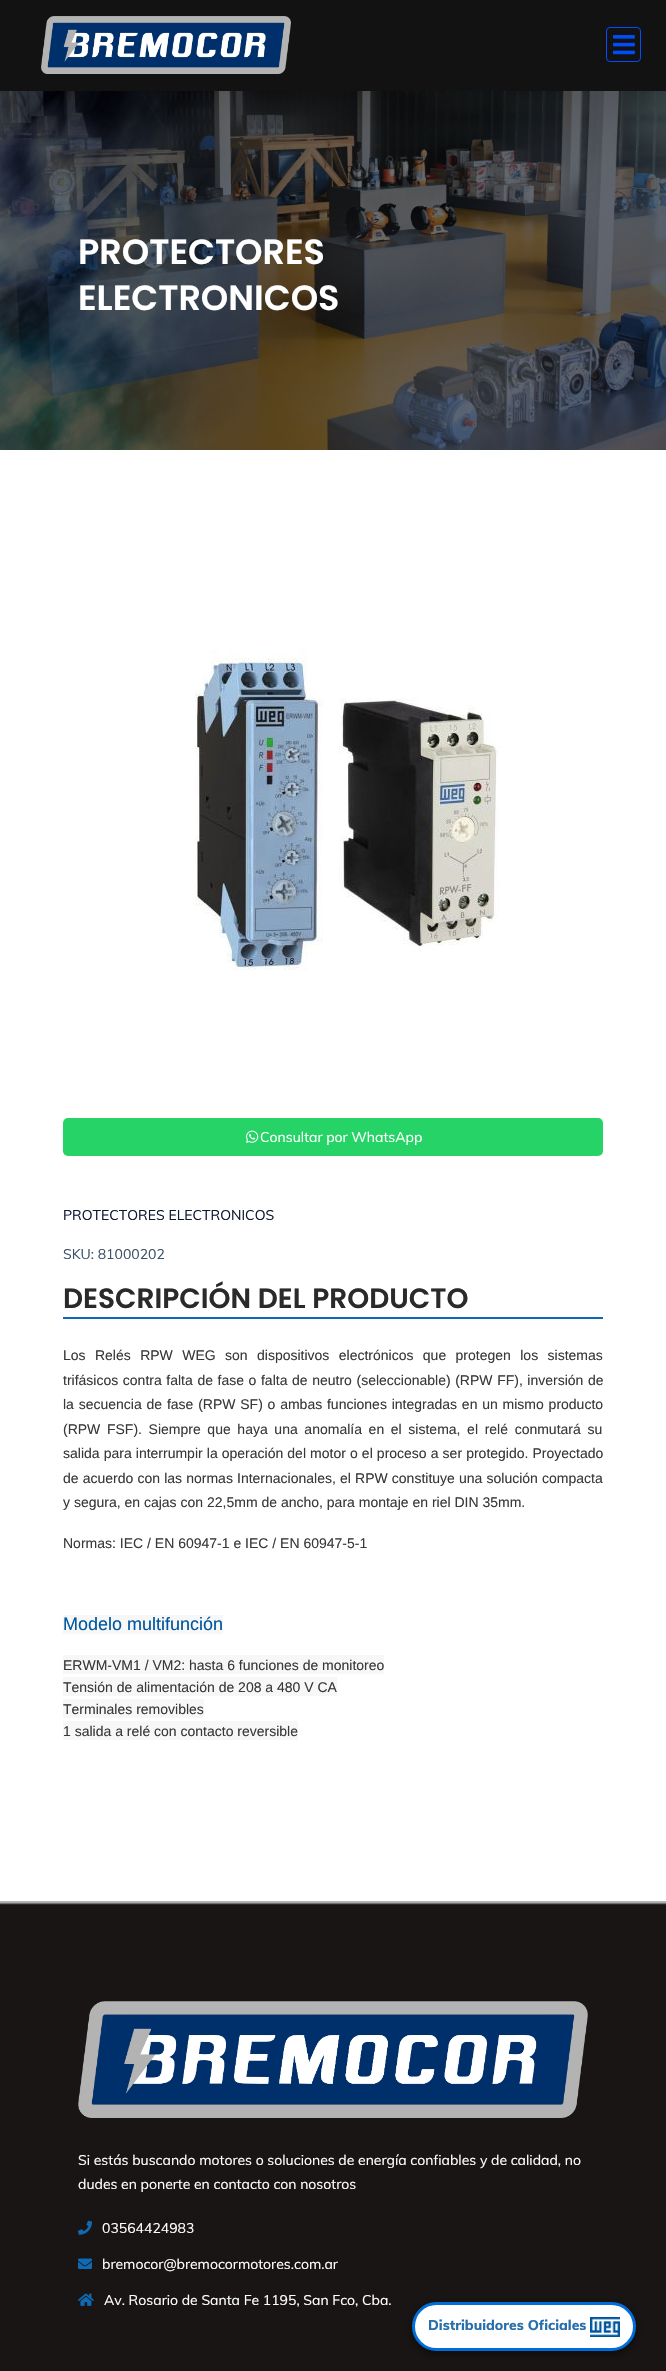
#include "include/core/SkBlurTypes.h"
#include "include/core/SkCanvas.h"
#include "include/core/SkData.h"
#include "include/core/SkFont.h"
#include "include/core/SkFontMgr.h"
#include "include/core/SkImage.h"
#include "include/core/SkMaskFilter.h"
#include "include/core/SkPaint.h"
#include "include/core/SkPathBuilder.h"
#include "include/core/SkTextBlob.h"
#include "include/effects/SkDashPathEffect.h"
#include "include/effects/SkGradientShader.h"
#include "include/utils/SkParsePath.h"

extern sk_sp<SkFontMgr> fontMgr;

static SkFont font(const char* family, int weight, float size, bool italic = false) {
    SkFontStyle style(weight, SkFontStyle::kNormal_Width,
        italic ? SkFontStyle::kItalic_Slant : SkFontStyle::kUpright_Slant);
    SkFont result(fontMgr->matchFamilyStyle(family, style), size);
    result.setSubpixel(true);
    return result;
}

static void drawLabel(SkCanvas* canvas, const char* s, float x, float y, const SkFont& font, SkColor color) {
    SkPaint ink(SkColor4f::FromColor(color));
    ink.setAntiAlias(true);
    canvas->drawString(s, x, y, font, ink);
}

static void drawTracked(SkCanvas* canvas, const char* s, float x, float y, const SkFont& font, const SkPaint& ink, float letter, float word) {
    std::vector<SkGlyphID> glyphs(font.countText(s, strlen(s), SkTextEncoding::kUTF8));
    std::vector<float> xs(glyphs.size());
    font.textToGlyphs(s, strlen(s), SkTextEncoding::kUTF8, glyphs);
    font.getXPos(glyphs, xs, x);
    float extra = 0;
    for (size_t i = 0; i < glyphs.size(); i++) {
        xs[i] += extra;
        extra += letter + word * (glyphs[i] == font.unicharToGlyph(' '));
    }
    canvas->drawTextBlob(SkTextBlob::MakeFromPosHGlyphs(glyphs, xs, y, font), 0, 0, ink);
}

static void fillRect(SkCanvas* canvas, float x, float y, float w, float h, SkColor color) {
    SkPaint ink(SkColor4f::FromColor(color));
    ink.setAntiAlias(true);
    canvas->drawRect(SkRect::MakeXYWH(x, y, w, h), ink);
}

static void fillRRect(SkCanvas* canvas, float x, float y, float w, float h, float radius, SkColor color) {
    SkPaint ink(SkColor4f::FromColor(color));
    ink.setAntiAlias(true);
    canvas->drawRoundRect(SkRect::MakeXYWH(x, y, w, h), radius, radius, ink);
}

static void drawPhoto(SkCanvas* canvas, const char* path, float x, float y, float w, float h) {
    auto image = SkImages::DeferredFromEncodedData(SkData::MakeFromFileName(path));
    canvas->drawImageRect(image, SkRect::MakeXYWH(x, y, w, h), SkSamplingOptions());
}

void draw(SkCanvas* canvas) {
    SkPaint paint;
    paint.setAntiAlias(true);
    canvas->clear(0xFFFFFFFF);
    fillRect(canvas, 0, 0, 666, 91, 0xFF121212);
    drawPhoto(canvas, "assets/img1.png", 41, 16, 250, 58);
    paint.setStroke(true);
    paint.setStrokeWidth(1);
    paint.setColor(0xFF004CFF);
    canvas->drawRoundRect(SkRect::MakeXYWH(606.5f, 27.5f, 34, 34), 3.5f, 3.5f, paint);
    drawPhoto(canvas, "assets/img2.png", 613, 35, 22, 20);
    drawPhoto(canvas, "assets/img3.png", 0, 91, 666, 359);
    SkFont font1 = font("Poppins", 600, 35);
    drawLabel(canvas, "PROTECTORES", 78, 264, font1, 0xFFFFFFFF);
    drawLabel(canvas, "ELECTRONICOS", 78, 310, font1, 0xFFFFFFFF);
    drawPhoto(canvas, "assets/img4.png", 195, 650, 304, 320);
    fillRRect(canvas, 63, 1118, 540, 38, 5, 0xFF25D366);
    drawPhoto(canvas, "assets/img5.png", 246, 1130, 13, 13);
    SkFont font2 = font("Muli", 400, 14);
    drawLabel(canvas, "Consultar por WhatsApp", 260, 1142, font2, 0xFFFFFFFF);
    drawLabel(canvas, "PROTECTORES ELECTRONICOS", 63, 1220, font2, 0xFF101830);
    drawLabel(canvas, "SKU: 81000202", 63, 1259, font2, 0xFF3D5169);
    fillRect(canvas, 63, 1317, 540, 2, 0xFF0E6AB5);
    SkFont font3 = font("Poppins", 600, 28);
    drawLabel(canvas, "DESCRIPCIÓN DEL PRODUCTO", 63, 1308, font3, 0xFF2A2A2A);
    SkFont font4 = font("Liberation Sans", 400, 14);
    paint.setStroke(false);
    paint.setColor(0xFF393939);
    drawTracked(canvas, "Los Relés RPW WEG son dispositivos electrónicos que protegen los sistemas", 63, 1360, font4, paint, 0, 5.5f);
    drawTracked(canvas, "trifásicos contra falta de fase o falta de neutro (seleccionable) (RPW FF), inversión de", 63, 1385, font4, paint, 0, 0.7f);
    drawTracked(canvas, "la secuencia de fase (RPW SF) o ambas funciones integradas en un mismo producto", 63, 1409, font4, paint, 0, 0.9f);
    drawTracked(canvas, "(RPW FSF). Siempre que haya una anomalía en el sistema, el relé conmutará su", 63, 1434, font4, paint, 0, 2.75f);
    drawTracked(canvas, "salida para interrumpir la operación del motor o el proceso a ser protegido. Proyectado", 63, 1458, font4, paint, 0, 0.2f);
    drawTracked(canvas, "de acuerdo con las normas Internacionales, el RPW constituye una solución compacta", 63, 1483, font4, paint, 0, 0.25f);
    drawLabel(canvas, "y segura, en cajas con 22,5mm de ancho, para montaje en riel DIN 35mm.", 63, 1507, font4, 0xFF393939);
    drawLabel(canvas, "Normas: IEC / EN 60947-1 e IEC / EN 60947-5-1", 63, 1548, font4, 0xFF393939);
    fillRect(canvas, 63, 1615, 160, 19, 0xFFF7F7F7);
    SkFont font5 = font("Liberation Sans", 400, 18);
    drawLabel(canvas, "Modelo multifunción", 63, 1630, font5, 0xFF00579D);
    fillRect(canvas, 63, 1655, 321, 19, 0xFFF7F7F7);
    drawLabel(canvas, "ERWM-VM1 / VM2: hasta 6 funciones de monitoreo", 63, 1670, font4, 0xFF393939);
    fillRect(canvas, 63, 1677, 274, 19, 0xFFF7F7F7);
    drawLabel(canvas, "Tensión de alimentación de 208 a 480 V CA", 63, 1692, font4, 0xFF393939);
    fillRect(canvas, 63, 1699, 141, 19, 0xFFF7F7F7);
    drawLabel(canvas, "Terminales removibles", 63, 1714, font4, 0xFF393939);
    fillRect(canvas, 63, 1721, 235, 19, 0xFFF7F7F7);
    drawLabel(canvas, "1 salida a relé con contacto reversible", 63, 1736, font4, 0xFF393939);
    drawPhoto(canvas, "assets/img6.png", 0, 1901, 666, 470);
    drawPhoto(canvas, "assets/img7.png", 78, 2001, 510, 117);
    drawLabel(canvas, "Si estás buscando motores o soluciones de energía confiables y de calidad, no", 78, 2165, font2, 0xFFFFFFFF);
    drawLabel(canvas, "dudes en ponerte en contacto con nosotros", 78, 2189, font2, 0xFFFFFFFF);
    drawPhoto(canvas, "assets/img8.png", 78, 2220, 14, 15);
    drawLabel(canvas, "03564424983", 102, 2233, font2, 0xFFFFFFFF);
    drawPhoto(canvas, "assets/img9.png", 78, 2258, 14, 11);
    drawLabel(canvas, "bremocor@bremocormotores.com.ar", 102, 2269, font2, 0xFFFFFFFF);
    drawPhoto(canvas, "assets/img10.png", 78, 2293, 16, 13);
    drawLabel(canvas, "Av. Rosario de Santa Fe 1195, San Fco, Cba.", 104, 2305, font2, 0xFFFFFFFF);
    paint.setColor(0x80000000);
    paint.setMaskFilter(SkMaskFilter::MakeBlur(kNormal_SkBlurStyle, 5));
    canvas->drawRoundRect(SkRect::MakeXYWH(412, 2305, 224, 49), 24.5f, 24.5f, paint);
    paint.setMaskFilter(nullptr);
    paint.setColor(0xFFFFFFFF);
    canvas->drawRoundRect(SkRect::MakeXYWH(413.5f, 2303.5f, 221, 46), 23, 23, paint);
    paint.setStroke(true);
    paint.setStrokeWidth(3);
    paint.setColor(0xFF016DD9);
    canvas->drawRoundRect(SkRect::MakeXYWH(413.5f, 2303.5f, 221, 46), 23, 23, paint);
    SkFont font6 = font("Muli", 800, 14);
    drawLabel(canvas, "Distribuidores Oficiales", 428, 2330, font6, 0xFF266FAC);
    drawPhoto(canvas, "assets/img11.png", 590, 2317, 30, 20);
}
